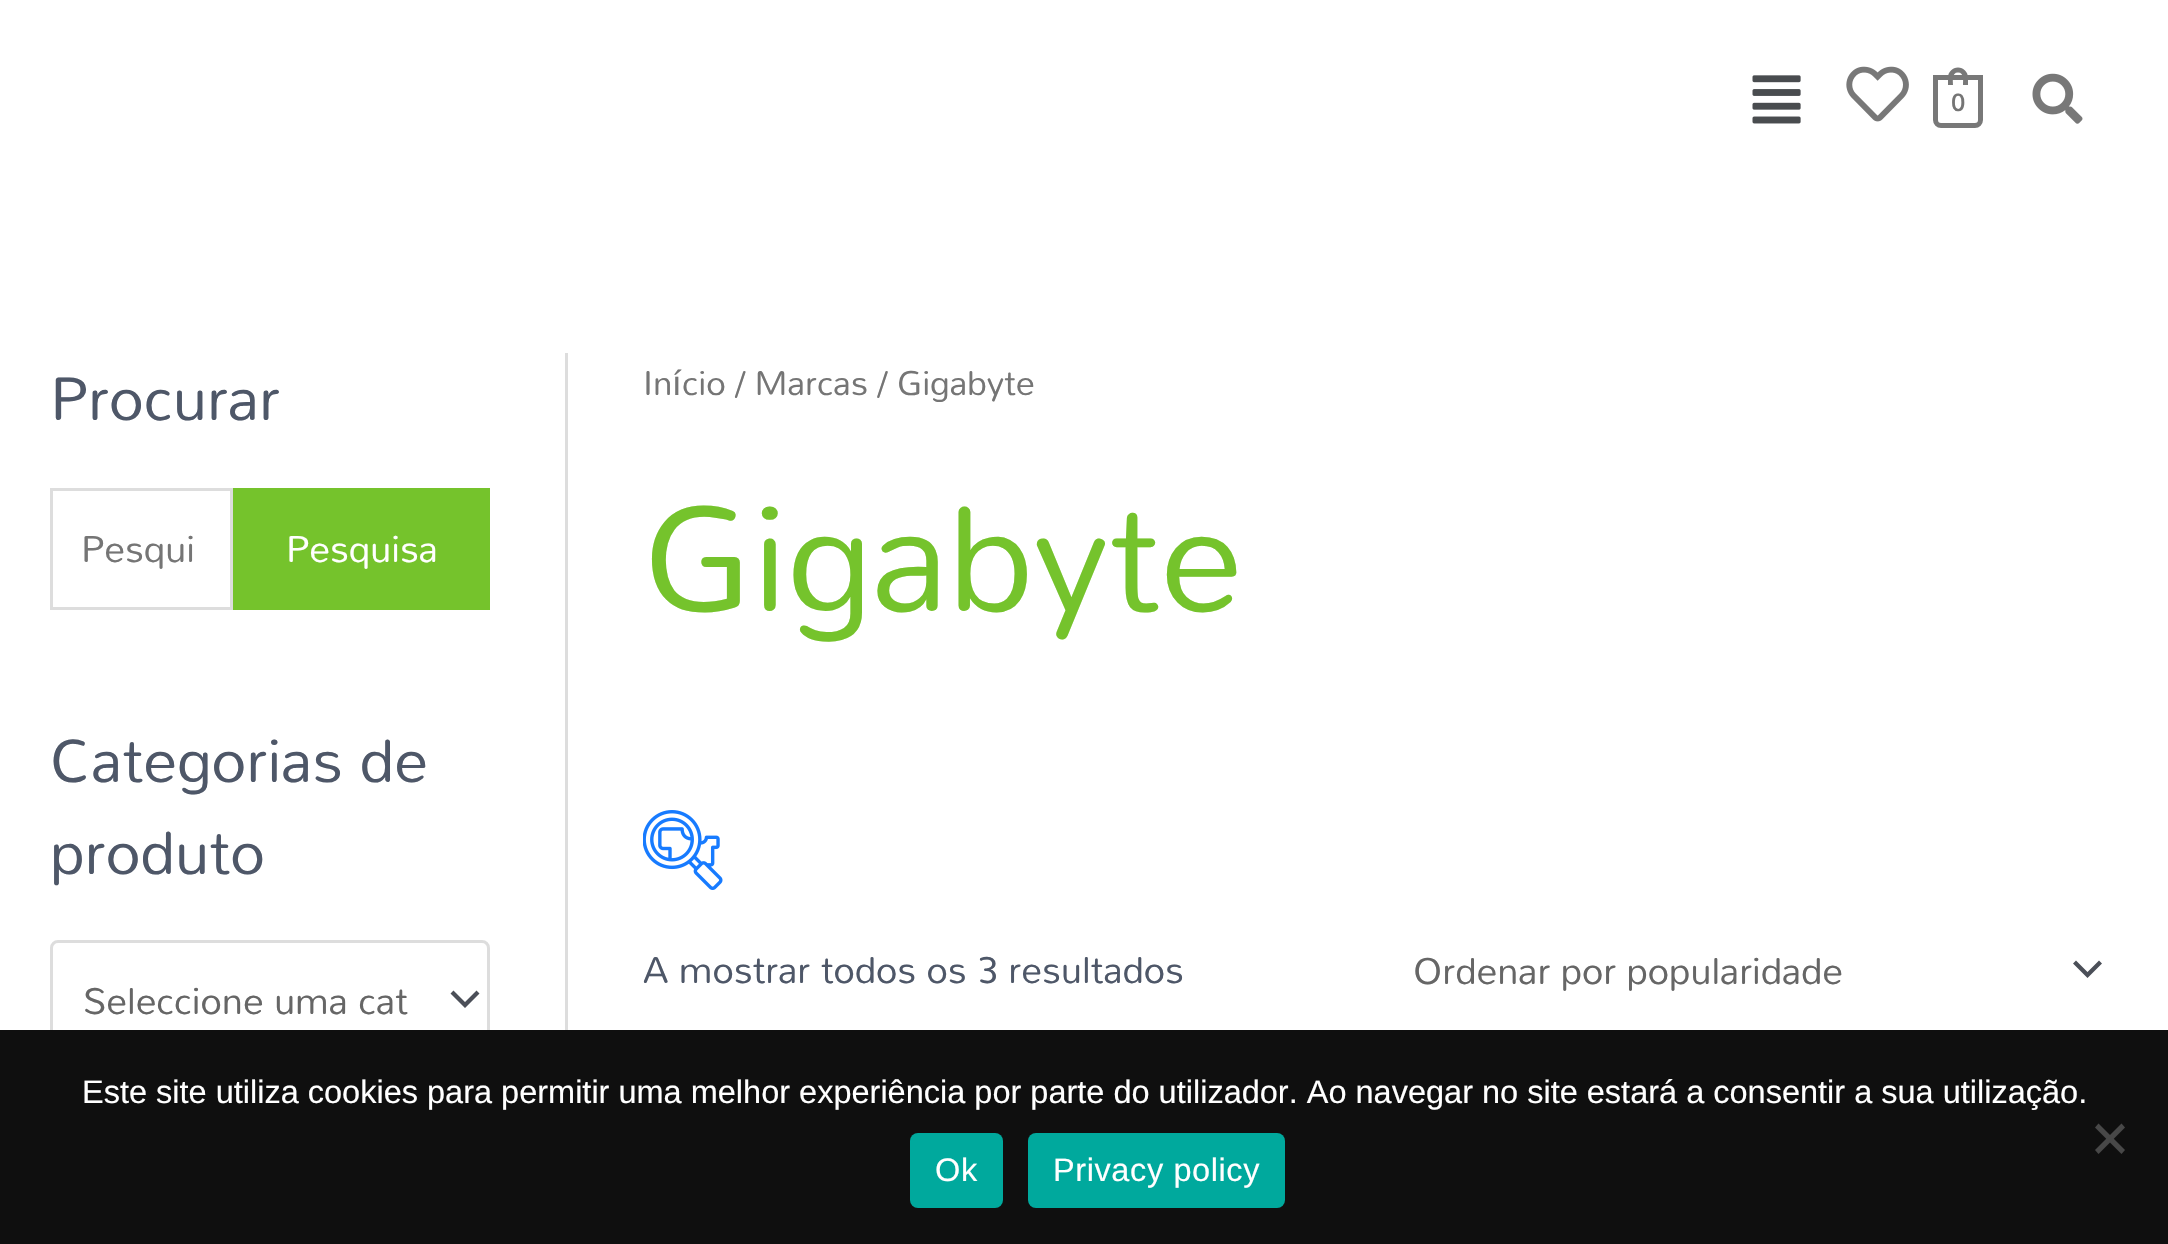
#include "include/core/SkBlurTypes.h"
#include "include/core/SkCanvas.h"
#include "include/core/SkData.h"
#include "include/core/SkFont.h"
#include "include/core/SkFontMgr.h"
#include "include/core/SkImage.h"
#include "include/core/SkMaskFilter.h"
#include "include/core/SkPaint.h"
#include "include/core/SkPathBuilder.h"
#include "include/core/SkTextBlob.h"
#include "include/effects/SkDashPathEffect.h"
#include "include/effects/SkGradientShader.h"
#include "include/utils/SkParsePath.h"

extern sk_sp<SkFontMgr> fontMgr;

static SkFont font(const char* family, int weight, float size, bool italic = false) {
    SkFontStyle style(weight, SkFontStyle::kNormal_Width,
        italic ? SkFontStyle::kItalic_Slant : SkFontStyle::kUpright_Slant);
    SkFont result(fontMgr->matchFamilyStyle(family, style), size);
    result.setSubpixel(true);
    return result;
}

static void drawLabel(SkCanvas* canvas, const char* s, float x, float y, const SkFont& font, SkColor color) {
    SkPaint ink(SkColor4f::FromColor(color));
    ink.setAntiAlias(true);
    canvas->drawString(s, x, y, font, ink);
}

static void drawTracked(SkCanvas* canvas, const char* s, float x, float y, const SkFont& font, const SkPaint& ink, float letter, float word) {
    std::vector<SkGlyphID> glyphs(font.countText(s, strlen(s), SkTextEncoding::kUTF8));
    std::vector<float> xs(glyphs.size());
    font.textToGlyphs(s, strlen(s), SkTextEncoding::kUTF8, glyphs);
    font.getXPos(glyphs, xs, x);
    float extra = 0;
    for (size_t i = 0; i < glyphs.size(); i++) {
        xs[i] += extra;
        extra += letter + word * (glyphs[i] == font.unicharToGlyph(' '));
    }
    canvas->drawTextBlob(SkTextBlob::MakeFromPosHGlyphs(glyphs, xs, y, font), 0, 0, ink);
}

static void fillRect(SkCanvas* canvas, float x, float y, float w, float h, SkColor color) {
    SkPaint ink(SkColor4f::FromColor(color));
    ink.setAntiAlias(true);
    canvas->drawRect(SkRect::MakeXYWH(x, y, w, h), ink);
}

static void fillRRect(SkCanvas* canvas, float x, float y, float w, float h, float radius, SkColor color) {
    SkPaint ink(SkColor4f::FromColor(color));
    ink.setAntiAlias(true);
    canvas->drawRoundRect(SkRect::MakeXYWH(x, y, w, h), radius, radius, ink);
}

static void drawPhoto(SkCanvas* canvas, const char* path, float x, float y, float w, float h) {
    auto image = SkImages::DeferredFromEncodedData(SkData::MakeFromFileName(path));
    canvas->drawImageRect(image, SkRect::MakeXYWH(x, y, w, h), SkSamplingOptions());
}

static SkPath parsePath(const char* data, bool evenOdd = false) {
    SkPath result = *SkParsePath::FromSVGString(data);
    if (evenOdd) result.setFillType(SkPathFillType::kEvenOdd);
    return result;
}

void draw(SkCanvas* canvas) {
    SkPaint paint;
    paint.setAntiAlias(true);
    canvas->clear(0xFFFFFFFF);
    drawPhoto(canvas, "assets/img1.png", 1752, 75, 49, 49);
    drawPhoto(canvas, "assets/img2.png", 1846, 66, 63, 56);
    paint.setStroke(true);
    paint.setStrokeWidth(5);
    paint.setColor(0xFF787878);
    canvas->drawPath(parsePath("M1935.5 77.5H1980.5V120C1980.5 123 1978 125.5 1975 125.5H1941C1938 125.5 1935.5 123 1935.5 120Z"), paint);
    paint.setStroke(false);
    canvas->drawPath(parsePath("M1958 67.5C1963.5 67.5 1968 72 1968 77.5V85H1948V77.5C1948 72 1952.5 67.5 1958 67.5ZM1958 72.5C1964.5 72.5 1963 81 1963 85H1953C1953 81 1951.5 72.5 1958 72.5Z", true), paint);
    SkFont font1 = font("Mandali", 700, 24);
    drawLabel(canvas, "0", 1951, 111, font1, 0xFF757575);
    drawPhoto(canvas, "assets/img3.png", 2032, 73, 51, 51);
    fillRect(canvas, 565, 353, 3, 677, 0xFFDDDDDD);
    SkFont font2 = font("Mandali", 400, 61);
    drawLabel(canvas, "Procurar", 50, 420, font2, 0xFF4E5768);
    paint.setStroke(true);
    paint.setStrokeWidth(3);
    paint.setColor(0xFFDDDDDD);
    canvas->drawRect(SkRect::MakeXYWH(51.5f, 489.5f, 180, 119), paint);
    SkFont font3 = font("Mandali", 400, 37.5f);
    drawLabel(canvas, "Pesqui", 81, 562, font3, 0xFF757575);
    fillRect(canvas, 233, 488, 257, 122, 0xFF75C32C);
    drawLabel(canvas, "Pesquisa", 286, 562, font3, 0xFFFFFFFF);
    drawLabel(canvas, "Categorias de", 50, 782, font2, 0xFF4E5768);
    drawLabel(canvas, "produto", 50, 874, font2, 0xFF4E5768);
    paint.setStroke(false);
    paint.setColor(0xFF4B4F58);
    canvas->drawPath(parsePath("M450.5 993.5L465 1008L479.5 993.5L476.5 990.5L465 1002L453.5 990.5Z"), paint);
    paint.setStroke(true);
    paint.setColor(0xFFDDDDDD);
    canvas->drawRoundRect(SkRect::MakeXYWH(51.5f, 941.5f, 437, 115), 6.5f, 6.5f, paint);
    drawLabel(canvas, "Seleccione uma cat", 83, 1014, font3, 0xFF666666);
    SkFont font4 = font("Mandali", 400, 34.5f);
    drawLabel(canvas, "In cio / Marcas / Gigabyte", 643, 395, font4, 0xFF757575);
    SkFont font5 = font("Liberation Sans", 400, 34.5f);
    drawLabel(canvas, "í", 672, 395, font5, 0xFF757575);
    SkFont font6 = font("Mandali", 400, 150);
    drawLabel(canvas, "Gigabyte", 643, 611, font6, 0xFF75C32C);
    drawPhoto(canvas, "assets/img4.png", 643, 810, 80, 80);
    drawLabel(canvas, "A mostrar todos os 3 resultados", 643, 983, font3, 0xFF4E5768);
    paint.setStroke(false);
    paint.setColor(0xFF4B4F58);
    canvas->drawPath(parsePath("M2073 963.5L2087.5 978L2102 963.5L2099 960.5L2087.5 972L2076 960.5Z"), paint);
    drawLabel(canvas, "Ordenar por popularidade", 1413, 984, font3, 0xFF666666);
    fillRect(canvas, 0, 1030, 2168, 214, 0xFF0F0F0F);
    SkFont font7 = font("Liberation Sans", 400, 32.5f);
    drawLabel(canvas, "Este site utiliza cookies para permitir uma melhor experiência por parte do utilizador. Ao navegar no site estará a consentir a sua utilização.", 82, 1103, font7, 0xFFFFFFFF);
    paint.setColor(0xFF484848);
    canvas->drawPath(parsePath("M2121.5 1123.5L2125 1127.5L2098.5 1154L2095 1150Z"), paint);
    canvas->drawPath(parsePath("M2095 1127.5L2098.5 1123.5L2125 1150L2121.5 1154Z"), paint);
    fillRRect(canvas, 910, 1133, 93, 75, 8, 0xFF00A99D);
    paint.setColor(0xFFFFFFFF);
    drawTracked(canvas, "Ok", 935, 1181, font7, paint, 0.6f, 0);
    fillRRect(canvas, 1028, 1133, 257, 75, 8, 0xFF00A99D);
    drawTracked(canvas, "Privacy policy", 1053, 1181, font7, paint, 0.6f, 0);
}
